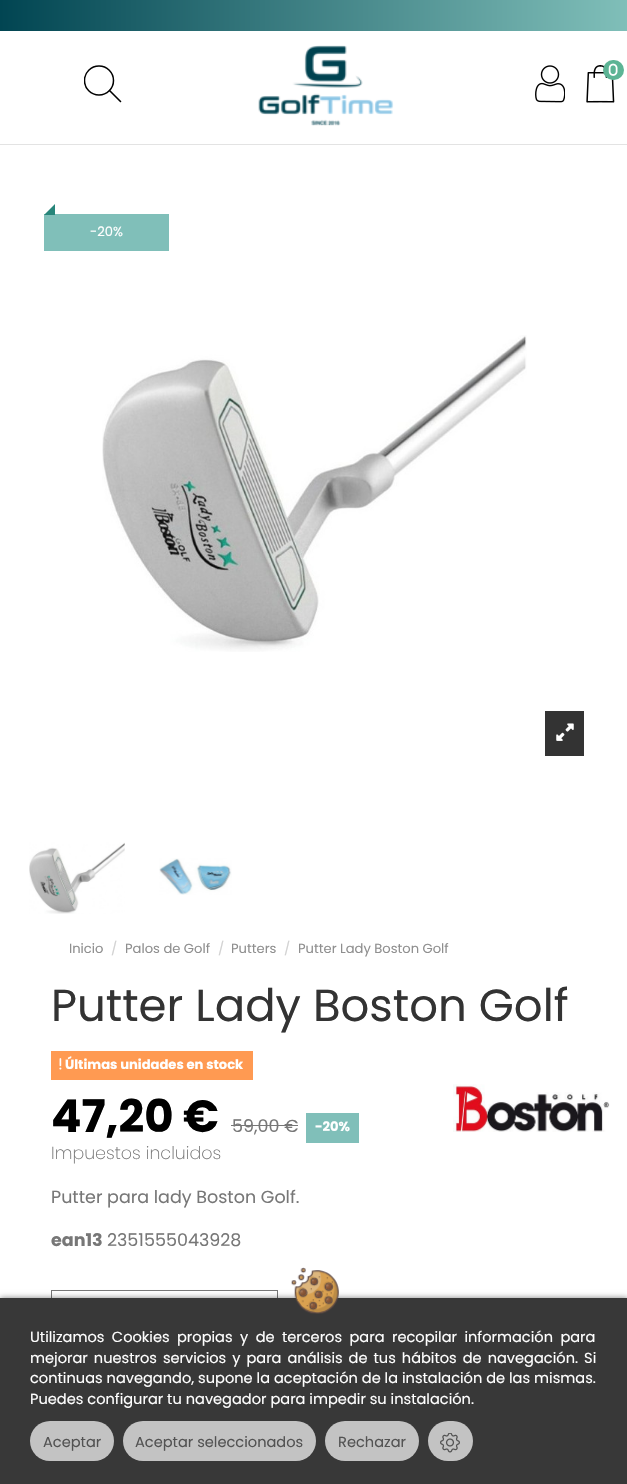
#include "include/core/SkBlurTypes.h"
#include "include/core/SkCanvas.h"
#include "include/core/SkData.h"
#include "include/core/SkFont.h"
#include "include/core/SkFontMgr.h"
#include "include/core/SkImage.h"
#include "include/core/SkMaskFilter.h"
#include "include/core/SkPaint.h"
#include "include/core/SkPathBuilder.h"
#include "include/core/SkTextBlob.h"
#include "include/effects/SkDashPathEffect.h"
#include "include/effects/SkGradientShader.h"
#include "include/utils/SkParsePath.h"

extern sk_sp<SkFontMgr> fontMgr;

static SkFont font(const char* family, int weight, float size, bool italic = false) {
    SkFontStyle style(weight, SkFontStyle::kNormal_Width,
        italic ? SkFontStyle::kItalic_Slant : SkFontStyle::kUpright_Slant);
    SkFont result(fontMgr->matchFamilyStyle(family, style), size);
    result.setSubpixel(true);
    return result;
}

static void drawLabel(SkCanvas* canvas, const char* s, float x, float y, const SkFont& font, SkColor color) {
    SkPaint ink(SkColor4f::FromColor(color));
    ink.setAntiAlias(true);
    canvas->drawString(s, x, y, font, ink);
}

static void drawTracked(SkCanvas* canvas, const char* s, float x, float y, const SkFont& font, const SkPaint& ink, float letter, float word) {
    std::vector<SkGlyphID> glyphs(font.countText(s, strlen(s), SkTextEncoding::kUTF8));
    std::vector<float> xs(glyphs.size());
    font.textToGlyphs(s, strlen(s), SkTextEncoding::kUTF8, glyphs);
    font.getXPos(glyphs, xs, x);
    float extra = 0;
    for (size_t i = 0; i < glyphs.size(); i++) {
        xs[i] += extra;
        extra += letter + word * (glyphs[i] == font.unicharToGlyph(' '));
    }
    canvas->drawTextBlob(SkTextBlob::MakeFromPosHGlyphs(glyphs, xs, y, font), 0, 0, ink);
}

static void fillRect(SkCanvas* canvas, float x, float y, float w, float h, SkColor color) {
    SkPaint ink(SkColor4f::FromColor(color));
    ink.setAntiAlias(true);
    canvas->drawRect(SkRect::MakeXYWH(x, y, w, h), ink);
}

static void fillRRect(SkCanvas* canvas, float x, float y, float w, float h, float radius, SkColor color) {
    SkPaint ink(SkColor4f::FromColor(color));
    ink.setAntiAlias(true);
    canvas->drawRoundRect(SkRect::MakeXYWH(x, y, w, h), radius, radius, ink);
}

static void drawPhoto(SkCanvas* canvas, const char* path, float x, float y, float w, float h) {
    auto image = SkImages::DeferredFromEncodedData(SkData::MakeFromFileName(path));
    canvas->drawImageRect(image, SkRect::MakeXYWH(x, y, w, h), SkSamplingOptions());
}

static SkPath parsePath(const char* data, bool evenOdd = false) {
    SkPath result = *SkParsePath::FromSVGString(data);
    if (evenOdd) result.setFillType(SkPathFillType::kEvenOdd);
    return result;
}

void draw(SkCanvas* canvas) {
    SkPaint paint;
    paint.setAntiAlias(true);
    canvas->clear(0xFFFFFFFF);
    {
        const SkColor colors[] = {0xFF014552, 0xFF80BFB9};
        const float stops[] = {0, 1};
        const SkPoint ends[] = {{0, 16}, {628, 16}};
        paint.setShader(SkGradientShader::MakeLinear(ends, colors, stops, 2, SkTileMode::kClamp));
        paint.setAlpha(255);
    }
    canvas->drawRect(SkRect::MakeXYWH(0, 0, 627, 31), paint);
    fillRect(canvas, 0, 144, 627, 1, 0xFFE3E3E3);
    canvas->save();
    canvas->clipRect(SkRect::MakeXYWH(84, 65, 37, 38));
    paint.setStroke(true);
    paint.setStrokeWidth(1.5f);
    paint.setShader(nullptr);
    paint.setColor(0xFF000000);
    canvas->drawCircle(99, 80.5f, 14.5f, paint);
    canvas->restore();
    paint.setStrokeWidth(1.6f);
    paint.setStrokeCap(SkPaint::kRound_Cap);
    canvas->drawPath(parsePath("M109.5 90.5L120.5 101.5"), paint);
    drawPhoto(canvas, "assets/img1.png", 258, 45, 136, 81);
    drawPhoto(canvas, "assets/img2.png", 535, 65, 30, 38);
    drawPhoto(canvas, "assets/img4.png", 586, 65, 29, 38);
    fillRRect(canvas, 603, 60, 21, 20, 10, 0xFF5DB495);
    drawPhoto(canvas, "assets/img3.png", 608, 63, 10, 13);
    fillRect(canvas, 44, 214, 125, 37, 0xFF80BFB9);
    paint.setStroke(false);
    paint.setColor(0xFF27857A);
    canvas->drawPath(parsePath("M55 215H44L55 204Z"), paint);
    SkFont font1 = font("Poppins", 400, 13.1f);
    drawLabel(canvas, "-20%", 90, 236, font1, 0xFFFFFFFF);
    drawPhoto(canvas, "assets/img5.png", 102, 335, 425, 317);
    fillRect(canvas, 545, 711, 39, 45, 0xFF333333);
    drawPhoto(canvas, "assets/img6.png", 556, 723, 18, 18);
    drawPhoto(canvas, "assets/img7.png", 29, 842, 96, 72);
    drawPhoto(canvas, "assets/img8.png", 159, 858, 73, 37);
    drawLabel(canvas, "Inicio", 69, 953, font1, 0xFF8F8F8F);
    drawLabel(canvas, "/", 111, 953, font1, 0xFFD2D2D2);
    drawLabel(canvas, "Palos de Golf", 125, 953, font1, 0xFF8F8F8F);
    drawLabel(canvas, "/", 218, 953, font1, 0xFFD2D2D2);
    drawLabel(canvas, "Putters", 231, 953, font1, 0xFF8F8F8F);
    drawLabel(canvas, "/", 284, 953, font1, 0xFFD2D2D2);
    drawLabel(canvas, "Putter Lady Boston Golf", 298, 953, font1, 0xFF8F8F8F);
    SkFont font2 = font("Poppins", 400, 45);
    drawLabel(canvas, "Putter Lady Boston Golf", 51, 1021, font2, 0xFF333333);
    fillRect(canvas, 51, 1051, 202, 29, 0xFFFF9A52);
    drawPhoto(canvas, "assets/img9.png", 59, 1058, 3, 12);
    SkFont font3 = font("Poppins", 700, 13.1f);
    drawLabel(canvas, "Últimas unidades en stock", 65, 1069, font3, 0xFFFFFFFF);
    SkFont font4 = font("Poppins", 700, 45);
    drawLabel(canvas, "47,20 €", 51, 1132, font4, 0xFF000000);
    SkFont font5 = font("Poppins", 400, 17.5f);
    drawLabel(canvas, "59,00 €", 232, 1132, font5, 0xFF777777);
    fillRect(canvas, 231, 1125, 67, 1, 0xFF777777);
    fillRect(canvas, 306, 1113, 53, 30, 0xFF80BFB9);
    drawLabel(canvas, "-20%", 315, 1131, font3, 0xFFFFFFFF);
    SkFont font6 = font("Poppins", 200, 17.5f);
    drawLabel(canvas, "Impuestos incluidos", 51, 1159, font6, 0xFF777777);
    drawPhoto(canvas, "assets/img10.png", 453, 1084, 157, 48);
    drawLabel(canvas, "Putter para lady Boston Golf.", 51, 1203, font5, 0xFF777777);
    SkFont font7 = font("Poppins", 700, 17.5f);
    drawLabel(canvas, "ean13", 51, 1246, font7, 0xFF777777);
    drawLabel(canvas, "2351555043928", 107, 1246, font5, 0xFF777777);
    paint.setStroke(true);
    paint.setStrokeWidth(1);
    paint.setStrokeCap(SkPaint::kButt_Cap);
    paint.setColor(0xFF777777);
    canvas->drawRect(SkRect::MakeXYWH(51.5f, 1290.5f, 226, 74), paint);
    paint.setStroke(false);
    paint.setColor(0x80000000);
    paint.setMaskFilter(SkMaskFilter::MakeBlur(kNormal_SkBlurStyle, 3));
    canvas->drawRect(SkRect::MakeXYWH(0, 1298, 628, 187), paint);
    paint.setMaskFilter(nullptr);
    fillRect(canvas, 0, 1298, 627, 186, 0xFF383838);
    drawPhoto(canvas, "assets/img11.png", 291, 1267, 48, 47);
    SkFont font8 = font("Poppins", 400, 14.6f);
    paint.setColor(0xFFFFFFFF);
    drawTracked(canvas, "Utilizamos Cookies propias y de terceros para recopilar información para", 30, 1342, font8, paint, 0, 3.5f);
    drawTracked(canvas, "mejorar nuestros servicios y para análisis de tus hábitos de navegación. Si", 30, 1363, font8, paint, 0, 2.1f);
    drawLabel(canvas, "continuas navegando, supone la aceptación de la instalación de las mismas.", 30, 1383, font8, 0xFFFFFFFF);
    drawLabel(canvas, "Puedes configurar tu navegador para impedir su instalación.", 30, 1404, font8, 0xFFFFFFFF);
    fillRRect(canvas, 428, 1421, 45, 40, 20, 0xFFC3C3C3);
    fillRRect(canvas, 30, 1421, 84, 40, 20, 0xFFC3C3C3);
    drawLabel(canvas, "Aceptar", 43, 1447, font8, 0xFF535353);
    fillRRect(canvas, 123, 1421, 193, 40, 20, 0xFFC3C3C3);
    drawLabel(canvas, "Aceptar seleccionados", 135, 1447, font8, 0xFF535353);
    fillRRect(canvas, 325, 1421, 94, 40, 20, 0xFFC3C3C3);
    drawLabel(canvas, "Rechazar", 338, 1447, font8, 0xFF535353);
    drawPhoto(canvas, "assets/img12.png", 440, 1433, 20, 20);
}
